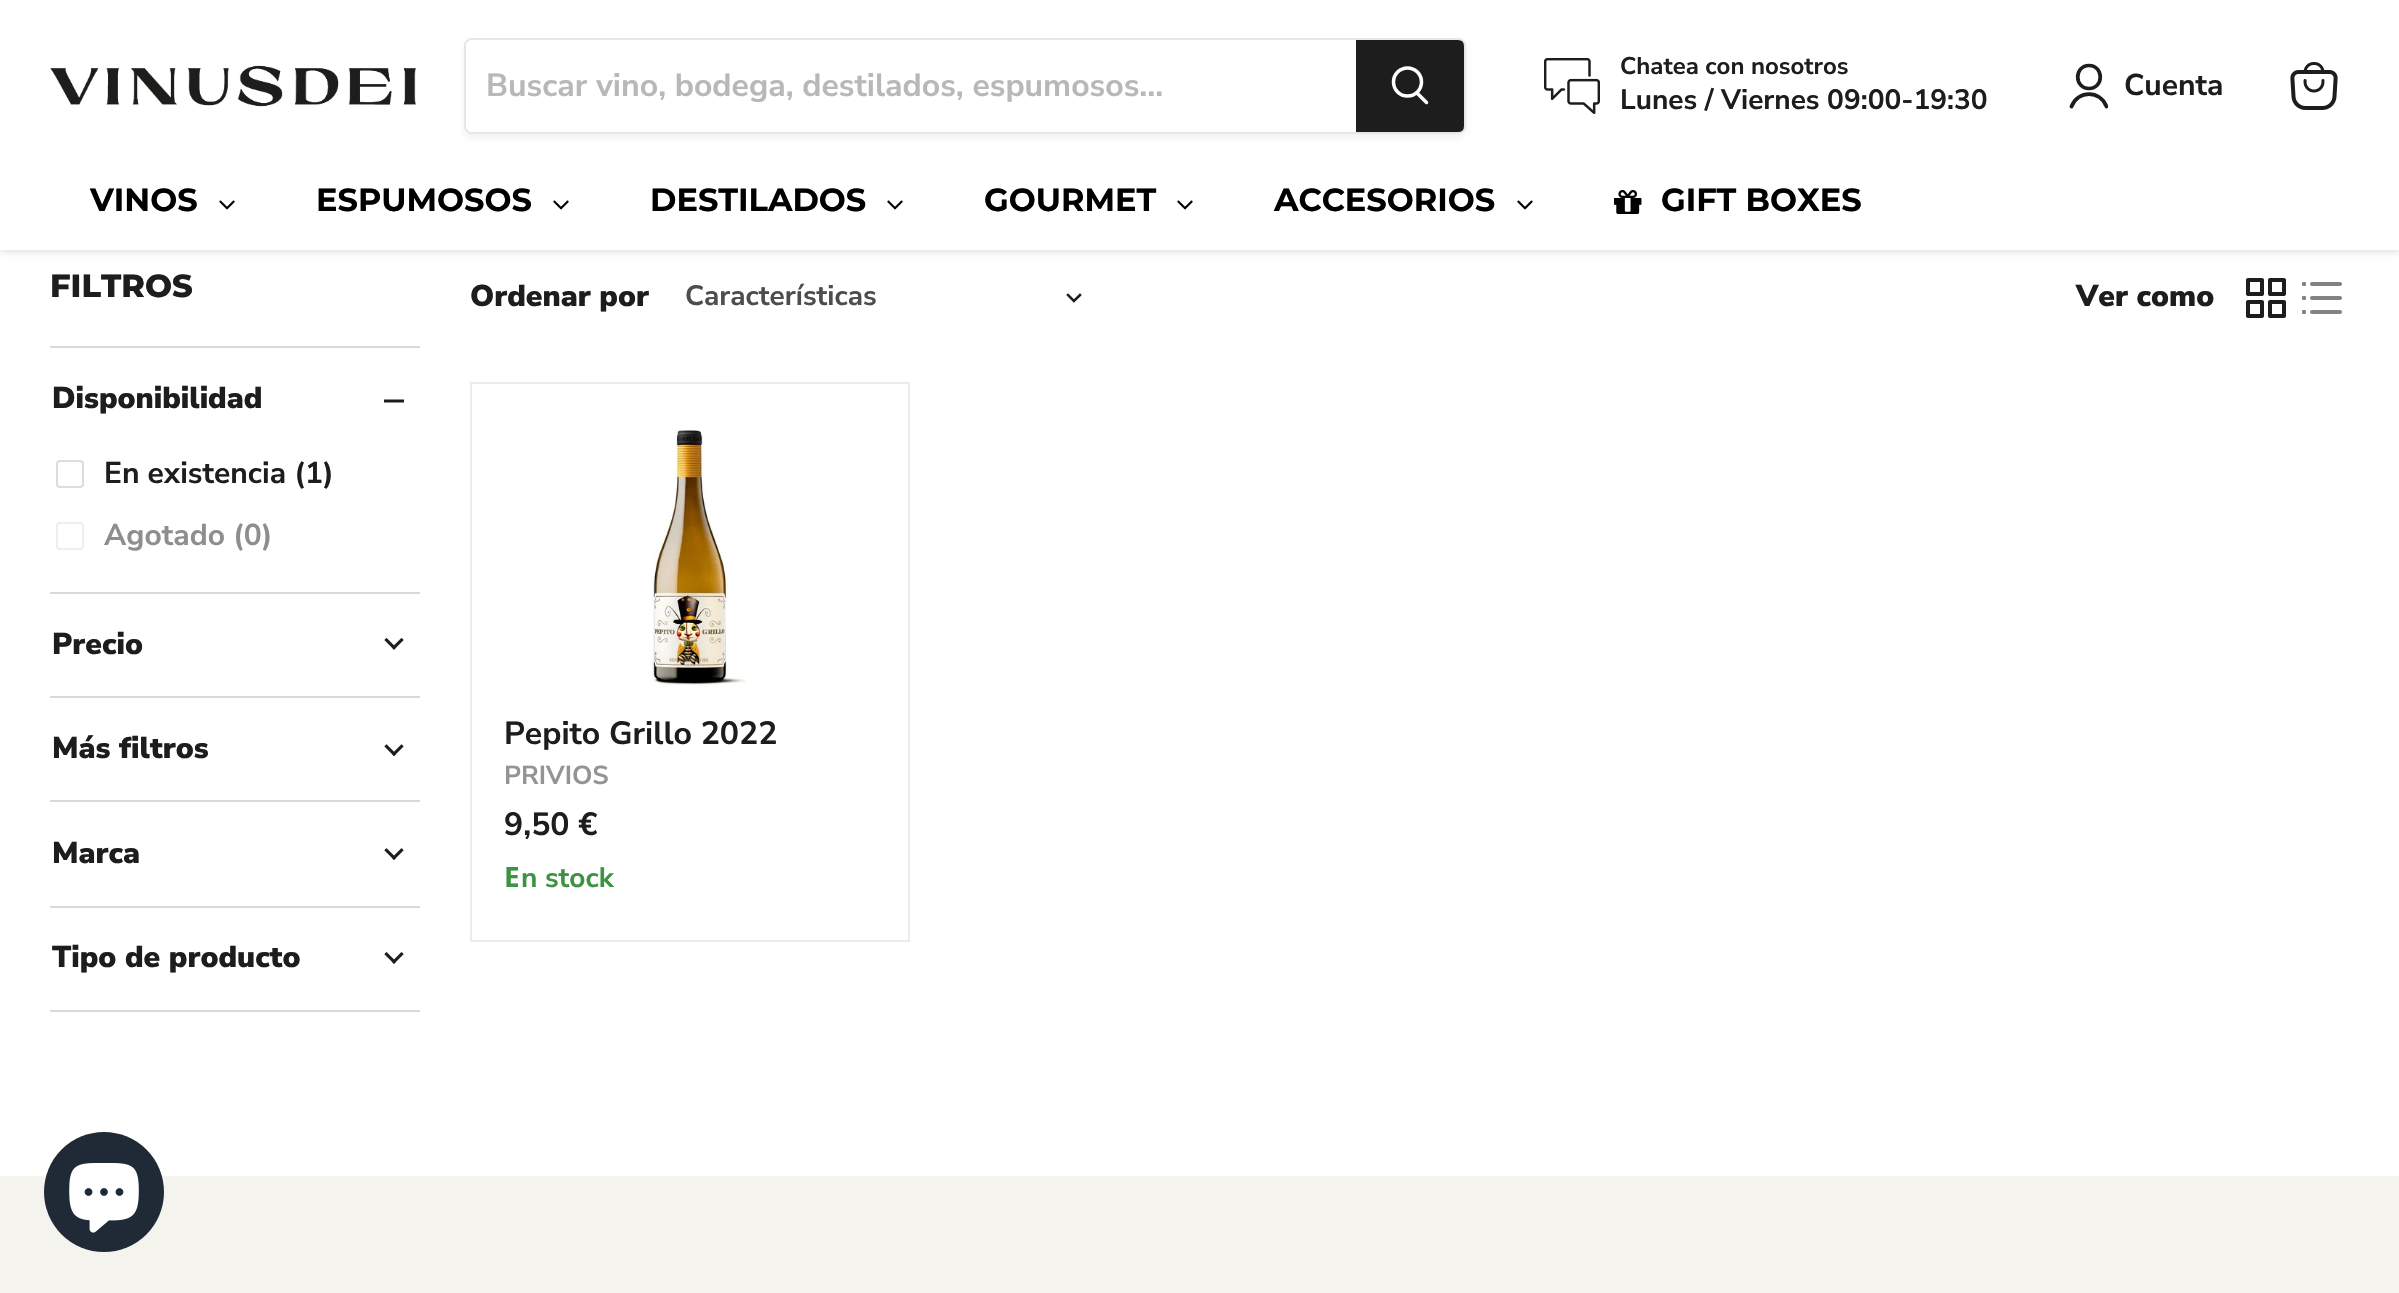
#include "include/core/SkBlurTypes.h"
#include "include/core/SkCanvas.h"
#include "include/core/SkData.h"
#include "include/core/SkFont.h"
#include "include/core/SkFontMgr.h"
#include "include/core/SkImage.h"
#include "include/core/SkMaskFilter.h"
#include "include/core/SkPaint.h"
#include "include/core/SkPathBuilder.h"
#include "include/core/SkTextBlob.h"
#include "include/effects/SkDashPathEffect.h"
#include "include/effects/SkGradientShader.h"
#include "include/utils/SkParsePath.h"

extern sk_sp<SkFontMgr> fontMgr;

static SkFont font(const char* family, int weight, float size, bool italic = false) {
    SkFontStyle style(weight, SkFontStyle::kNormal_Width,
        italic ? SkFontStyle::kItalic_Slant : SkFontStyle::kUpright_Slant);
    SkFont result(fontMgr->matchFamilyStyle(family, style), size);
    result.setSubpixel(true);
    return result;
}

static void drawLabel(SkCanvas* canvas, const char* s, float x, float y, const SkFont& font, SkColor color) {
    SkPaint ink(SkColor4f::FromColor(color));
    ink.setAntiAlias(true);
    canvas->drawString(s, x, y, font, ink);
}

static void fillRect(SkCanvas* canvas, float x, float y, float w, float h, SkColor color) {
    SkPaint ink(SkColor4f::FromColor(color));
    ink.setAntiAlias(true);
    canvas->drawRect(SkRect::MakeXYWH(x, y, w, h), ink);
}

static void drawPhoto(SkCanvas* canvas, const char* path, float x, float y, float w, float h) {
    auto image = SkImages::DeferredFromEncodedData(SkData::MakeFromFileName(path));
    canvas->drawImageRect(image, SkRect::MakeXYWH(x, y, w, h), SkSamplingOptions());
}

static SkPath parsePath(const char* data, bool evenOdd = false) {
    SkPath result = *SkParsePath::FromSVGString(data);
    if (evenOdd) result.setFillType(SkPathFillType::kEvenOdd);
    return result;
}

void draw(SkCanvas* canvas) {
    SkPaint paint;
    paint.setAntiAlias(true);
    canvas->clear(0xFFFFFFFF);
    paint.setColor(0x40808080);
    paint.setMaskFilter(SkMaskFilter::MakeBlur(kNormal_SkBlurStyle, 4));
    canvas->drawRect(SkRect::MakeXYWH(0, 2, 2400, 250), paint);
    paint.setMaskFilter(nullptr);
    fillRect(canvas, 0, 0, 2399, 250, 0xFFFFFFFF);
    drawPhoto(canvas, "assets/img1.png", 50, 65, 366, 42);
    canvas->save();
    canvas->clipPath(parsePath("M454 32H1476V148H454ZM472 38H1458C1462.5 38 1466 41.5 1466 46V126C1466 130.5 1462.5 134 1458 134H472C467.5 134 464 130.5 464 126V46C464 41.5 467.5 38 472 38Z", true), true);
    paint.setColor(0x1C808080);
    paint.setMaskFilter(SkMaskFilter::MakeBlur(kNormal_SkBlurStyle, 3));
    canvas->drawRoundRect(SkRect::MakeXYWH(464, 42, 1002, 96), 8, 8, paint);
    paint.setMaskFilter(nullptr);
    canvas->restore();
    paint.setStroke(true);
    paint.setStrokeWidth(2);
    paint.setColor(0x33808080);
    canvas->drawRoundRect(SkRect::MakeXYWH(465, 39, 1000, 94), 7, 7, paint);
    paint.setStroke(false);
    paint.setColor(0xFFFFFFFF);
    canvas->drawPath(parsePath("M472 40H1356V132H472C468.5 132 466 129.5 466 126V46C466 42.5 468.5 40 472 40Z"), paint);
    SkFont font1 = font("Nunito Sans", 700, 32);
    drawLabel(canvas, "Buscar vino, bodega, destilados, espumosos...", 486, 96, font1, 0xFFB8B8B8);
    paint.setColor(0xFF1D1D1D);
    canvas->drawPath(parsePath("M1357 41H1458C1461 41 1463 43 1463 46V126C1463 129 1461 131 1458 131H1357Z"), paint);
    paint.setStroke(true);
    canvas->drawPath(parsePath("M1357 41H1458C1461 41 1463 43 1463 46V126C1463 129 1461 131 1458 131H1357Z"), paint);
    paint.setStrokeWidth(3.5f);
    paint.setStrokeCap(SkPaint::kRound_Cap);
    paint.setColor(0xFFFFFFFF);
    canvas->drawPath(parsePath("M1426.5 102.5L1417 93"), paint);
    paint.setStrokeCap(SkPaint::kButt_Cap);
    canvas->drawCircle(1407.5f, 82, 14, paint);
    drawPhoto(canvas, "assets/img2.png", 1544, 58, 56, 56);
    SkFont font2 = font("Nunito Sans", 700, 24);
    drawLabel(canvas, "Chatea con nosotros", 1620, 74, font2, 0xFF1D1D1D);
    SkFont font3 = font("Nunito Sans", 700, 28);
    drawLabel(canvas, "Lunes / Viernes 09:00-19:30", 1620, 109, font3, 0xFF1D1D1D);
    paint.setStrokeWidth(3.7f);
    paint.setStrokeCap(SkPaint::kRound_Cap);
    paint.setStrokeJoin(SkPaint::kRound_Join);
    paint.setColor(0xFF1D1D1D);
    canvas->drawPath(parsePath("M2089 88.5C2104 88.5 2104 65.5 2089 65.5C2074 65.5 2074 88.5 2089 88.5Z"), paint);
    canvas->save();
    canvas->clipRect(SkRect::MakeXYWH(2068, 62, 40, 48));
    canvas->drawPath(parsePath("M2106.5 106.5C2100.5 90 2077.5 90 2071.5 106.5"), paint);
    canvas->restore();
    SkFont font4 = font("Nunito Sans", 700, 30);
    drawLabel(canvas, "Cuenta", 2124, 95, font4, 0xFF1D1D1D);
    drawPhoto(canvas, "assets/img3.png", 2290, 62, 48, 48);
    SkFont font5 = font("Montserrat", 100, 32);
    drawLabel(canvas, "VINOS", 90, 211, font5, 0xFF000000);
    drawPhoto(canvas, "assets/img4.png", 219, 200, 16, 10);
    drawLabel(canvas, "ESPUMOSOS", 316, 211, font5, 0xFF000000);
    drawPhoto(canvas, "assets/img4.png", 553, 200, 16, 10);
    drawLabel(canvas, "DESTILADOS", 650, 211, font5, 0xFF000000);
    drawPhoto(canvas, "assets/img4.png", 887, 200, 16, 10);
    drawLabel(canvas, "GOURMET", 984, 211, font5, 0xFF000000);
    drawPhoto(canvas, "assets/img4.png", 1177, 200, 16, 10);
    drawLabel(canvas, "ACCESORIOS", 1274, 211, font5, 0xFF000000);
    drawPhoto(canvas, "assets/img4.png", 1517, 200, 16, 10);
    drawPhoto(canvas, "assets/img5.png", 1614, 190, 28, 24);
    drawLabel(canvas, "GIFT BOXES", 1661, 211, font5, 0xFF000000);
    SkFont font6 = font("Montserrat", 800, 32);
    drawLabel(canvas, "FILTROS", 50, 297, font6, 0xFF1D1D1D);
    fillRect(canvas, 50, 346, 370, 2, 0xFFD9D9D9);
    SkFont font7 = font("Nunito Sans", 900, 30);
    drawLabel(canvas, "Disponibilidad", 52, 408, font7, 0xFF1D1D1D);
    canvas->save();
    canvas->clipRect(SkRect::MakeXYWH(384, 388, 20, 16));
    paint.setStrokeWidth(3.1f);
    paint.setStrokeCap(SkPaint::kSquare_Cap);
    paint.setStrokeJoin(SkPaint::kMiter_Join);
    canvas->drawPath(parsePath("M395.5 401H406M392.5 401H382"), paint);
    canvas->restore();
    paint.setStrokeWidth(2);
    paint.setStrokeCap(SkPaint::kButt_Cap);
    paint.setColor(0xFFDDDDDD);
    canvas->drawRoundRect(SkRect::MakeXYWH(57, 461, 26, 26), 3, 3, paint);
    drawLabel(canvas, "En existencia (1)", 104, 483, font4, 0xFF1D1D1D);
    paint.setColor(0xFFEEEEEE);
    canvas->drawRoundRect(SkRect::MakeXYWH(57, 523, 26, 26), 3, 3, paint);
    drawLabel(canvas, "Agotado (0)", 104, 545, font4, 0xFF8E8E8E);
    fillRect(canvas, 50, 592, 370, 2, 0xFFD9D9D9);
    drawLabel(canvas, "Precio", 52, 654, font7, 0xFF1D1D1D);
    drawPhoto(canvas, "assets/img6.png", 384, 638, 20, 12);
    fillRect(canvas, 50, 696, 370, 2, 0xFFD9D9D9);
    drawLabel(canvas, "Más filtros", 52, 758, font7, 0xFF1D1D1D);
    drawPhoto(canvas, "assets/img7.png", 384, 744, 20, 12);
    fillRect(canvas, 50, 800, 370, 2, 0xFFD9D9D9);
    drawLabel(canvas, "Marca", 52, 863, font7, 0xFF1D1D1D);
    drawPhoto(canvas, "assets/img8.png", 384, 848, 20, 12);
    fillRect(canvas, 50, 906, 370, 2, 0xFFD9D9D9);
    fillRect(canvas, 50, 1010, 370, 2, 0xFFD9D9D9);
    drawLabel(canvas, "Tipo de producto", 52, 967, font7, 0xFF1D1D1D);
    drawPhoto(canvas, "assets/img9.png", 384, 952, 20, 12);
    drawLabel(canvas, "Ordenar por", 470, 306, font7, 0xFF1D1D1D);
    drawLabel(canvas, "Características", 685, 305, font3, 0xFF4D4D4D);
    paint.setStrokeWidth(2.5f);
    paint.setStrokeCap(SkPaint::kSquare_Cap);
    paint.setColor(0xFF1D1D1D);
    canvas->drawPath(parsePath("M1074 301L1080 295M1074 301L1068 295"), paint);
    drawLabel(canvas, "Ver como", 2076, 306, font7, 0xFF1D1D1D);
    drawPhoto(canvas, "assets/img10.png", 2246, 278, 40, 40);
    drawPhoto(canvas, "assets/img11.png", 2302, 282, 40, 32);
    paint.setStrokeWidth(2);
    paint.setStrokeCap(SkPaint::kButt_Cap);
    paint.setColor(0xFFEBEBEB);
    canvas->drawRect(SkRect::MakeXYWH(471, 383, 438, 558), paint);
    drawPhoto(canvas, "assets/img12.png", 652, 430, 94, 255);
    drawLabel(canvas, "Pepito Grillo 2022", 504, 744, font1, 0xFF1D1D1D);
    SkFont font8 = font("Nunito Sans", 700, 26);
    drawLabel(canvas, "PRIVIOS", 504, 784, font8, 0xFF949494);
    drawLabel(canvas, "9,50 €", 504, 835, font1, 0xFF1D1D1D);
    SkFont font9 = font("Noto Sans", 700, 28);
    drawLabel(canvas, "E", 504, 887, font9, 0xFF3C9342);
    drawLabel(canvas, "n stock", 521, 887, font3, 0xFF3C9342);
    fillRect(canvas, 0, 1176, 2399, 117, 0xFFF5F3ED);
    paint.setStroke(false);
    paint.setColor(0xFF202A36);
    canvas->drawCircle(104, 1192, 60, paint);
    drawPhoto(canvas, "assets/img13.png", 69, 1163, 70, 70);
}
